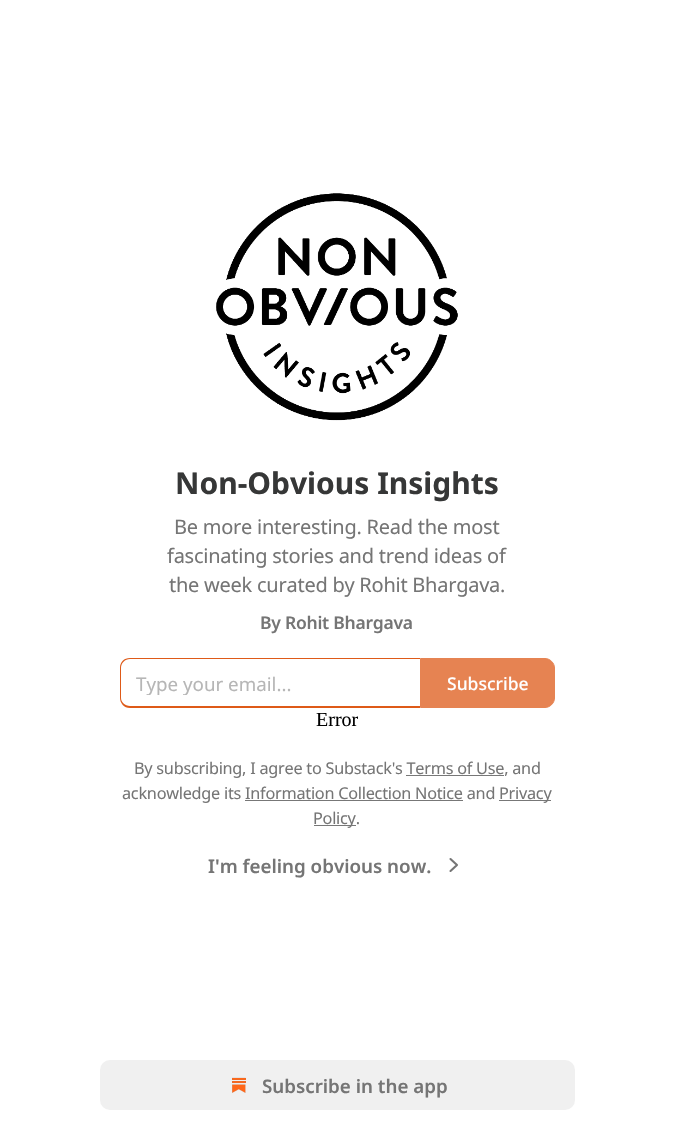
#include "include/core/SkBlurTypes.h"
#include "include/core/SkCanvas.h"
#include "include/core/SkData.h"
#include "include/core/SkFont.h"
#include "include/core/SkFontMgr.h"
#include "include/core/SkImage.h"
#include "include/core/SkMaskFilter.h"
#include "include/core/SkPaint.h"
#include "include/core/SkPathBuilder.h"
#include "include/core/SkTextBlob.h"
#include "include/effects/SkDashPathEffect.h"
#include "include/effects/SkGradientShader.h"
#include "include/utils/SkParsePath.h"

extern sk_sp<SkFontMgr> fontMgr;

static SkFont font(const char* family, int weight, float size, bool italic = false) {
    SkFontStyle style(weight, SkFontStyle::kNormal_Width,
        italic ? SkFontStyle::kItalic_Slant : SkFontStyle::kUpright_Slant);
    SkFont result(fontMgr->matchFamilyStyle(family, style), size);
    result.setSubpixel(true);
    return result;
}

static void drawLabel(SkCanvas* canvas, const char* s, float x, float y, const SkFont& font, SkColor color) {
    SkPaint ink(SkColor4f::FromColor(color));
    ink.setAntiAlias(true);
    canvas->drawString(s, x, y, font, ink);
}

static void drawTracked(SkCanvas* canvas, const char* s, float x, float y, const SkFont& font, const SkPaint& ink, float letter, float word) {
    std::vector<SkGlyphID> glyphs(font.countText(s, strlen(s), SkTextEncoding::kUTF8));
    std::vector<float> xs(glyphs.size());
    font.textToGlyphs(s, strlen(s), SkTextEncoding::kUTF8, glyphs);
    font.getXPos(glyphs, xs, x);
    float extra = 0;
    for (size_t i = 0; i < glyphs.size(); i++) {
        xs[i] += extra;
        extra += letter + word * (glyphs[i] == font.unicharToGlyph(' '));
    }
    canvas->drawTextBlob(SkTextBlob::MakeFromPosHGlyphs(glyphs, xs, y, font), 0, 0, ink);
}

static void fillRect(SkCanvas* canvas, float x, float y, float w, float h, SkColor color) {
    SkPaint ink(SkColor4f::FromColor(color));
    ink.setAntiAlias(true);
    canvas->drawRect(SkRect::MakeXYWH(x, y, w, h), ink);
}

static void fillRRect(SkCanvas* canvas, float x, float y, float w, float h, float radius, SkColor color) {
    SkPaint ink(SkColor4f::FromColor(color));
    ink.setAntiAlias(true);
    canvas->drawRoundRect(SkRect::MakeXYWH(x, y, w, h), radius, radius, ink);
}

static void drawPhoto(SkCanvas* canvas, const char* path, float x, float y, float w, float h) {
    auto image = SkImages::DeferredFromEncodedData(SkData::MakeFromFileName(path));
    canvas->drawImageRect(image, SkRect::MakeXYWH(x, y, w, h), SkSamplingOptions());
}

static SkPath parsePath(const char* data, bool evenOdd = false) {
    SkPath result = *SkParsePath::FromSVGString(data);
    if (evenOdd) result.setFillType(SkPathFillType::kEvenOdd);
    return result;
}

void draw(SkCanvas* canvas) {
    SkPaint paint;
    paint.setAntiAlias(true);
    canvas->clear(0xFFFFFFFF);
    drawPhoto(canvas, "assets/img1.png", 216, 193, 242, 228);
    SkFont font1 = font("Noto Sans", 700, 30);
    drawLabel(canvas, "Non-Obvious Insights", 175, 494, font1, 0xFF363737);
    SkFont font2 = font("Noto Sans", 400, 20);
    paint.setColor(0xFF757575);
    drawTracked(canvas, "Be more interesting. Read the most", 174, 534, font2, paint, -0.25f, 0);
    drawTracked(canvas, "fascinating stories and trend ideas of", 167, 563, font2, paint, -0.25f, 0);
    drawTracked(canvas, "the week curated by Rohit Bhargava.", 169, 592, font2, paint, -0.25f, 0);
    SkFont font3 = font("Noto Sans", 600, 17.5f);
    drawTracked(canvas, "By Rohit Bhargava", 260, 629, font3, paint, -0.25f, 0);
    paint.setColor(0xFFDE5A18);
    canvas->drawPath(parsePath("M130 658H420V708H130C124 708 120 703 120 698V668C120 662 124 658 130 658ZM130 659H420V706H130C125 706 121 702 121 698V668C121 663 125 659 130 659Z", true), paint);
    canvas->save();
    canvas->clipRect(SkRect::MakeXYWH(136, 670, 269, 25));
    SkFont font4 = font("Noto Sans", 400, 18.75f);
    drawLabel(canvas, "Type your email...", 136, 691, font4, 0xFFB6B6B6);
    canvas->restore();
    paint.setColor(0xFFE68352);
    canvas->drawPath(parsePath("M420.5 658.5H545C550 658.5 554.5 663 554.5 668V698C554.5 703 550 707.5 545 707.5H420.5Z"), paint);
    paint.setStroke(true);
    paint.setStrokeWidth(1);
    canvas->drawPath(parsePath("M420.5 658.5H545C550 658.5 554.5 663 554.5 668V698C554.5 703 550 707.5 545 707.5H420.5Z"), paint);
    SkFont font5 = font("Noto Sans", 500, 17.5f);
    drawLabel(canvas, "Subscribe", 447, 690, font5, 0xFFFFFFFF);
    SkFont font6 = font("Liberation Serif", 400, 20);
    drawLabel(canvas, "Error", 316, 726, font6, 0xFF000000);
    SkFont font7 = font("Noto Sans", 400, 16.25f);
    paint.setStroke(false);
    paint.setColor(0xFF757575);
    drawTracked(canvas, "By subscribing, I agree to Substack's Terms of Use, and", 134, 774, font7, paint, -0.25f, 0);
    fillRect(canvas, 406, 775, 98, 1, 0xFF777777);
    drawTracked(canvas, "acknowledge its Information Collection Notice and", 122, 799, font7, paint, -0.25f, 0);
    fillRect(canvas, 499, 800, 52, 1, 0xFF777777);
    drawTracked(canvas, "Privacy", 499, 799, font7, paint, -0.25f, 0);
    fillRect(canvas, 245, 800, 218, 1, 0xFF777777);
    fillRect(canvas, 314, 825, 42, 1, 0xFF777777);
    drawTracked(canvas, "Policy.", 313, 824, font7, paint, -0.25f, 0);
    SkFont font8 = font("Noto Sans", 600, 18.75f);
    drawLabel(canvas, "I'm feeling obvious now.", 208, 873, font8, 0xFF757575);
    paint.setStroke(true);
    paint.setStrokeWidth(2.1f);
    paint.setStrokeCap(SkPaint::kRound_Cap);
    paint.setStrokeJoin(SkPaint::kRound_Join);
    canvas->drawPath(parsePath("M450.5 871L457 865L450.5 859"), paint);
    fillRRect(canvas, 100, 1060, 475, 50, 10, 0xFFF0F0F0);
    drawPhoto(canvas, "assets/img2.png", 232, 1077, 14, 16);
    drawLabel(canvas, "Subscribe in the app", 262, 1093, font8, 0xFF757575);
}
